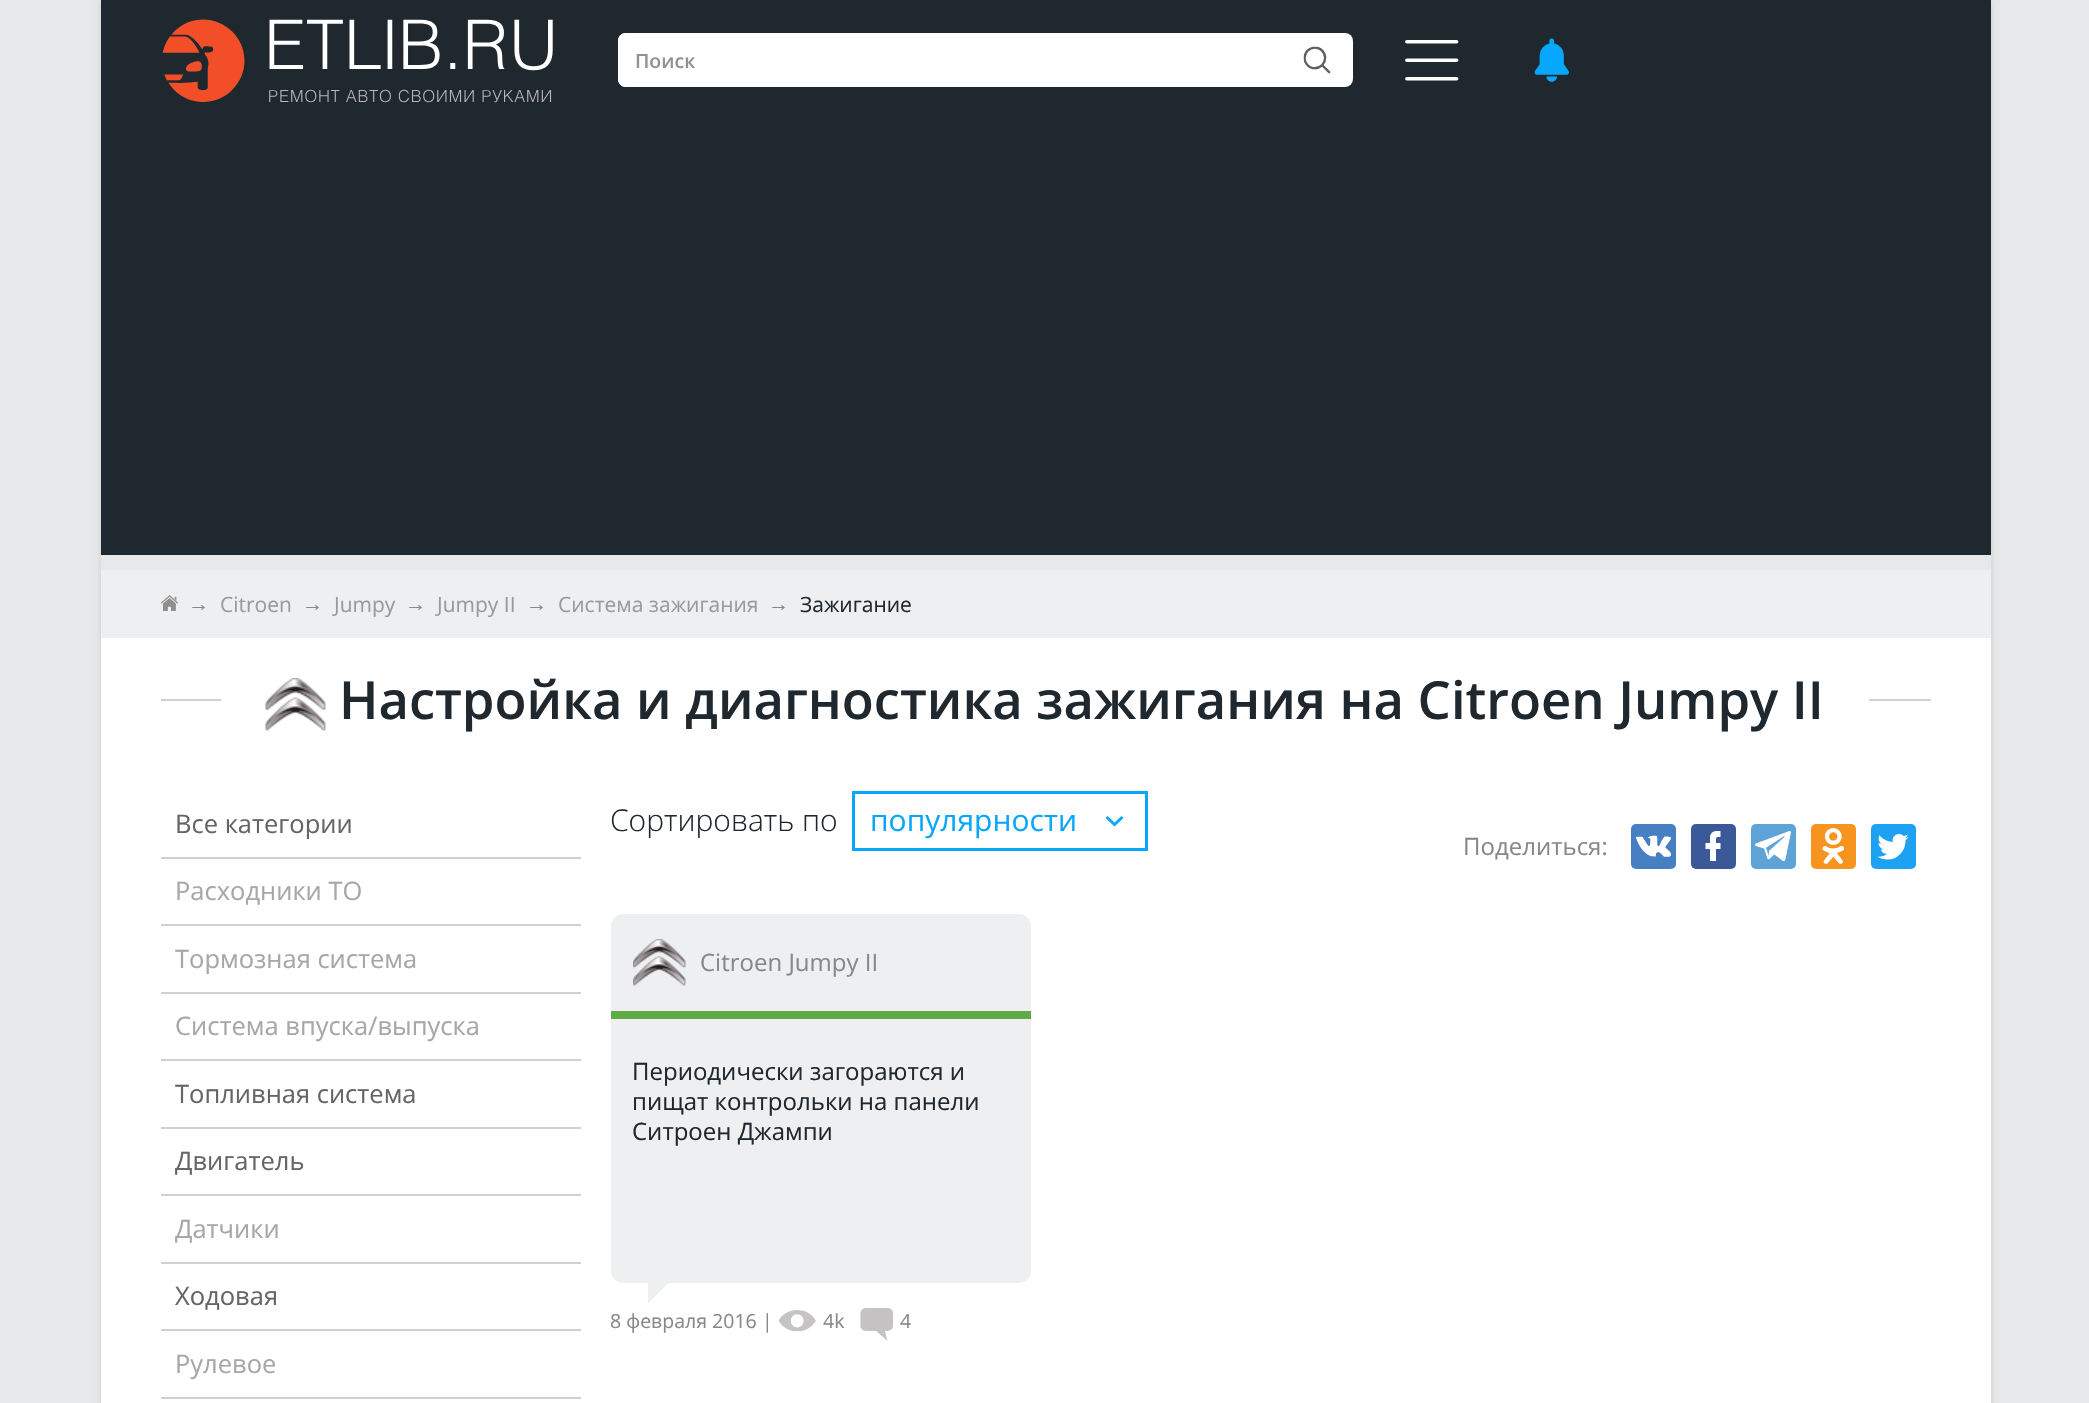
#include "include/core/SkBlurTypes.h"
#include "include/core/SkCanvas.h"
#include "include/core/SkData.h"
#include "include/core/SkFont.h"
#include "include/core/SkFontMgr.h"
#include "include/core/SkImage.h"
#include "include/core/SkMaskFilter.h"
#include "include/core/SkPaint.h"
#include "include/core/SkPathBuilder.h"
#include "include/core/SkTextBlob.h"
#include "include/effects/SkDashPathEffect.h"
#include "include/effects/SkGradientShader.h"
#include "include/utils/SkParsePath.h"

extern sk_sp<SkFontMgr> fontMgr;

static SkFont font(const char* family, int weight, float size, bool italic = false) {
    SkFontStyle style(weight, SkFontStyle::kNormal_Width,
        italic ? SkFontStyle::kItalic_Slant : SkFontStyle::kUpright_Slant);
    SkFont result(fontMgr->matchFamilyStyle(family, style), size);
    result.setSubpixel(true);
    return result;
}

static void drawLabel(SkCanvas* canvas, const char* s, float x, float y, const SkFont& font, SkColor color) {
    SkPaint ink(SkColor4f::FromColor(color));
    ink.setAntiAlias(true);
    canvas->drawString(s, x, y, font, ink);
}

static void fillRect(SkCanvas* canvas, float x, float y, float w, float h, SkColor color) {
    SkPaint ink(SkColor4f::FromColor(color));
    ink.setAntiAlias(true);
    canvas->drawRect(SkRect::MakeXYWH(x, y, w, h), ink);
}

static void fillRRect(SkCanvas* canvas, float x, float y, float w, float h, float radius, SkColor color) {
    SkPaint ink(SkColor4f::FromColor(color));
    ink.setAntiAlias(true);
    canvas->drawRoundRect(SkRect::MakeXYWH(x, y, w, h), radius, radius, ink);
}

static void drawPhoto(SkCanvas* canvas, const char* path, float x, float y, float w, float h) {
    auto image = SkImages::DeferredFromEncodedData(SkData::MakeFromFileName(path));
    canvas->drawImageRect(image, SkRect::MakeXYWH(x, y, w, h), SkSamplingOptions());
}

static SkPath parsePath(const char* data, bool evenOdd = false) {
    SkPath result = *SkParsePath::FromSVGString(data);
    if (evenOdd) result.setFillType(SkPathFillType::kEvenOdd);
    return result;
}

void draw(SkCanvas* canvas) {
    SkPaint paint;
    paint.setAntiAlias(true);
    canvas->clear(0xFFE6E8E9);
    canvas->save();
    canvas->clipPath(parsePath("M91 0H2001V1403H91ZM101 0H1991V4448H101Z", true), true);
    paint.setColor(0xFFC9CBCD);
    paint.setMaskFilter(SkMaskFilter::MakeBlur(kNormal_SkBlurStyle, 3));
    canvas->drawRect(SkRect::MakeXYWH(101, 0, 1890, 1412), paint);
    paint.setMaskFilter(nullptr);
    canvas->restore();
    fillRect(canvas, 101, 0, 1890, 555, 0xFF1F282F);
    drawPhoto(canvas, "assets/img1.png", 162, 19, 391, 84);
    fillRRect(canvas, 618, 33, 735, 54, 8, 0xFFFFFFFF);
    paint.setColor(0xFFFFFFFF);
    canvas->drawPath(parsePath("M626 33H1278V87H626C621.5 87 618 83.5 618 79V41C618 36.5 621.5 33 626 33Z"), paint);
    SkFont font1 = font("Open Sans", 600, 19.5f);
    drawLabel(canvas, "Поиск", 635, 68, font1, 0xFF929292);
    drawPhoto(canvas, "assets/img2.png", 1303, 46, 28, 28);
    drawPhoto(canvas, "assets/img3.png", 1405, 40, 54, 41);
    drawPhoto(canvas, "assets/img4.png", 1534, 38, 35, 44);
    fillRect(canvas, 101, 570, 1890, 68, 0xFFEEEFF0);
    drawPhoto(canvas, "assets/img5.png", 161, 595, 17, 16);
    SkFont font2 = font("Liberation Sans", 400, 21);
    drawLabel(canvas, "→", 188, 611, font2, 0xFF888888);
    SkFont font3 = font("Open Sans", 400, 21);
    drawLabel(canvas, "Citroen", 220, 612, font3, 0xFF989B9E);
    drawLabel(canvas, "→", 302, 611, font2, 0xFF888888);
    drawLabel(canvas, "Jumpy", 334, 612, font3, 0xFF989B9E);
    drawLabel(canvas, "→", 405, 611, font2, 0xFF888888);
    drawLabel(canvas, "Jumpy II", 437, 612, font3, 0xFF989B9E);
    drawLabel(canvas, "→", 526, 611, font2, 0xFF888888);
    drawLabel(canvas, "Система зажигания", 558, 612, font3, 0xFF989B9E);
    drawLabel(canvas, "→", 768, 611, font2, 0xFF888888);
    drawLabel(canvas, "Зажигание", 800, 612, font3, 0xFF1F282F);
    fillRect(canvas, 101, 638, 1890, 765, 0xFFFFFFFF);
    fillRect(canvas, 161, 699, 1770, 2, 0xFFCFD0D1);
    fillRect(canvas, 221, 699, 1648, 2, 0xFFFFFFFF);
    drawPhoto(canvas, "assets/img6.png", 265, 678, 61, 53);
    SkFont font4 = font("Open Sans", 600, 52.5f);
    drawLabel(canvas, "Настройка и диагностика зажигания на Citroen Jumpy II", 339, 719, font4, 0xFF1F282F);
    fillRect(canvas, 161, 857, 420, 2, 0xFFCFD0D1);
    SkFont font5 = font("Open Sans", 400, 25.5f);
    drawLabel(canvas, "Все категории", 175, 833, font5, 0xFF656565);
    fillRect(canvas, 161, 924, 420, 2, 0xFFCFD0D1);
    drawLabel(canvas, "Расходники ТО", 175, 900, font5, 0xFFA8A7A7);
    fillRect(canvas, 161, 992, 420, 2, 0xFFCFD0D1);
    drawLabel(canvas, "Тормозная система", 175, 968, font5, 0xFFA8A7A7);
    fillRect(canvas, 161, 1059, 420, 2, 0xFFCFD0D1);
    drawLabel(canvas, "Система впуска/выпуска", 175, 1035, font5, 0xFFA8A7A7);
    fillRect(canvas, 161, 1127, 420, 2, 0xFFCFD0D1);
    drawLabel(canvas, "Топливная система", 175, 1103, font5, 0xFF656565);
    fillRect(canvas, 161, 1194, 420, 2, 0xFFCFD0D1);
    drawLabel(canvas, "Двигатель", 175, 1170, font5, 0xFF656565);
    fillRect(canvas, 161, 1262, 420, 2, 0xFFCFD0D1);
    drawLabel(canvas, "Датчики", 175, 1238, font5, 0xFFA8A7A7);
    fillRect(canvas, 161, 1329, 420, 2, 0xFFCFD0D1);
    drawLabel(canvas, "Ходовая", 175, 1305, font5, 0xFF656565);
    fillRect(canvas, 161, 1397, 420, 2, 0xFFCFD0D1);
    drawLabel(canvas, "Рулевое", 175, 1373, font5, 0xFFA8A7A7);
    SkFont font6 = font("Open Sans", 300, 30);
    drawLabel(canvas, "Сортировать по", 610, 831, font6, 0xFF1F282F);
    paint.setStroke(true);
    paint.setStrokeWidth(3);
    paint.setColor(0xFF07A7FC);
    canvas->drawRect(SkRect::MakeXYWH(853.5f, 792.5f, 293, 57), paint);
    SkFont font7 = font("Open Sans", 400, 30);
    drawLabel(canvas, "популярности", 870, 831, font7, 0xFF07A7FC);
    paint.setStroke(false);
    canvas->drawPath(parsePath("M1123.5 818L1121.5 816L1114.5 822.5L1107.5 816L1105.5 818L1114.5 826.5Z"), paint);
    SkFont font8 = font("Open Sans", 400, 24);
    drawLabel(canvas, "Поделиться:", 1463, 855, font8, 0xFF888888);
    fillRRect(canvas, 1631, 824, 45, 45, 5, 0xFF4680C2);
    drawPhoto(canvas, "assets/img7.png", 1635, 835, 36, 22);
    fillRRect(canvas, 1691, 824, 45, 45, 5, 0xFF3B5998);
    drawPhoto(canvas, "assets/img8.png", 1705, 831, 16, 30);
    fillRRect(canvas, 1751, 824, 45, 45, 5, 0xFF5EA3D7);
    drawPhoto(canvas, "assets/img9.png", 1755, 831, 36, 30);
    fillRRect(canvas, 1811, 824, 45, 45, 5, 0xFFF7931F);
    drawPhoto(canvas, "assets/img10.png", 1822, 828, 23, 36);
    fillRRect(canvas, 1871, 824, 45, 45, 5, 0xFF1DA1F2);
    drawPhoto(canvas, "assets/img11.png", 1877, 834, 32, 26);
    paint.setColor(0xFFEEEFF0);
    canvas->drawPath(parsePath("M623 914H1019C1025.5 914 1031 919.5 1031 926V1019H611V926C611 919.5 616.5 914 623 914Z"), paint);
    fillRect(canvas, 611, 1011, 420, 8, 0xFF5FAB48);
    drawPhoto(canvas, "assets/img12.png", 633, 939, 53, 47);
    drawLabel(canvas, "Citroen Jumpy II", 700, 971, font8, 0xFF888888);
    canvas->drawPath(parsePath("M611 1019H1031V1271C1031 1277.5 1025.5 1283 1019 1283H623C616.5 1283 611 1277.5 611 1271Z"), paint);
    drawLabel(canvas, "Периодически загораются и", 632, 1080, font8, 0xFF1F282F);
    drawLabel(canvas, "пищат контрольки на панели", 632, 1110, font8, 0xFF1F282F);
    drawLabel(canvas, "Ситроен Джампи", 632, 1140, font8, 0xFF1F282F);
    canvas->drawPath(parsePath("M648 1281H670.5L648 1303.5Z"), paint);
    SkFont font9 = font("Open Sans", 400, 19.5f);
    drawLabel(canvas, "8 февраля 2016", 610, 1328, font9, 0xFF888888);
    drawLabel(canvas, "|", 762, 1328, font9, 0xFF888888);
    drawPhoto(canvas, "assets/img13.png", 778, 1310, 38, 22);
    drawLabel(canvas, "4k", 823, 1328, font9, 0xFF888888);
    drawPhoto(canvas, "assets/img14.png", 860, 1308, 34, 33);
    drawLabel(canvas, "4", 900, 1328, font9, 0xFF888888);
}
